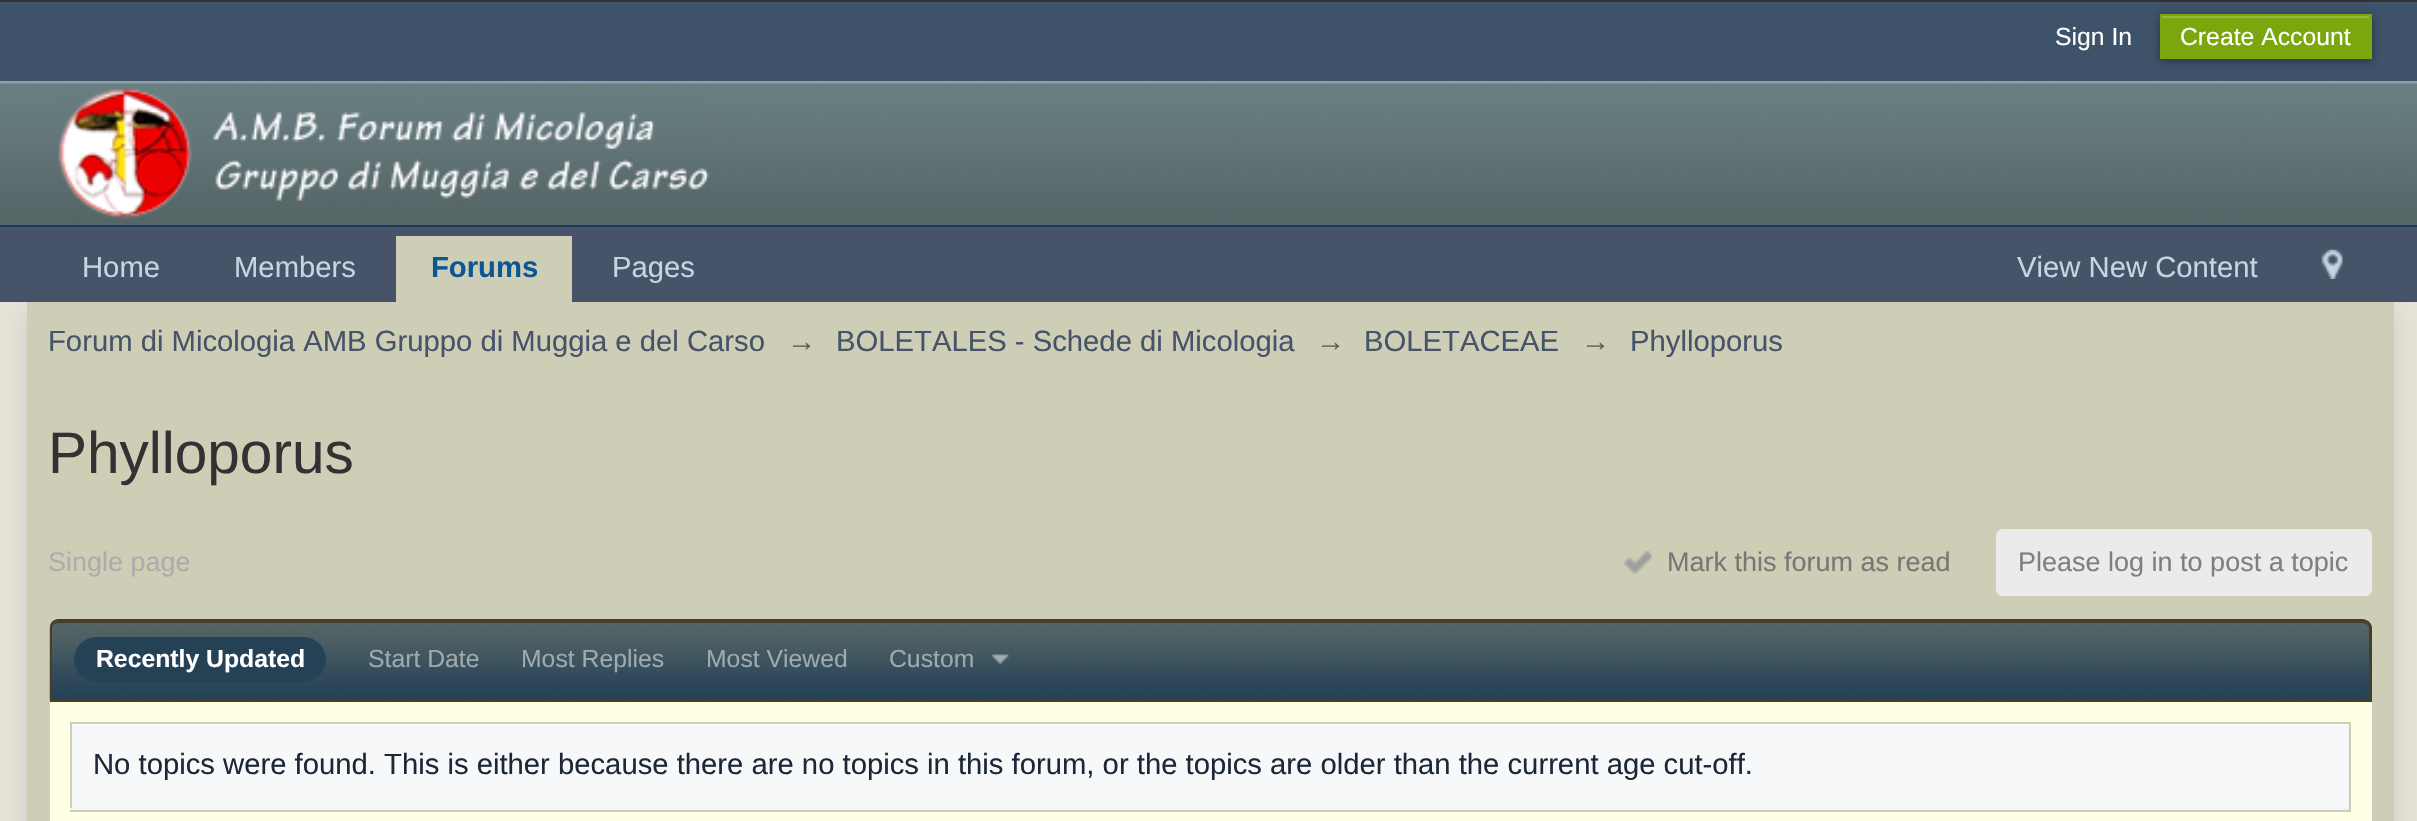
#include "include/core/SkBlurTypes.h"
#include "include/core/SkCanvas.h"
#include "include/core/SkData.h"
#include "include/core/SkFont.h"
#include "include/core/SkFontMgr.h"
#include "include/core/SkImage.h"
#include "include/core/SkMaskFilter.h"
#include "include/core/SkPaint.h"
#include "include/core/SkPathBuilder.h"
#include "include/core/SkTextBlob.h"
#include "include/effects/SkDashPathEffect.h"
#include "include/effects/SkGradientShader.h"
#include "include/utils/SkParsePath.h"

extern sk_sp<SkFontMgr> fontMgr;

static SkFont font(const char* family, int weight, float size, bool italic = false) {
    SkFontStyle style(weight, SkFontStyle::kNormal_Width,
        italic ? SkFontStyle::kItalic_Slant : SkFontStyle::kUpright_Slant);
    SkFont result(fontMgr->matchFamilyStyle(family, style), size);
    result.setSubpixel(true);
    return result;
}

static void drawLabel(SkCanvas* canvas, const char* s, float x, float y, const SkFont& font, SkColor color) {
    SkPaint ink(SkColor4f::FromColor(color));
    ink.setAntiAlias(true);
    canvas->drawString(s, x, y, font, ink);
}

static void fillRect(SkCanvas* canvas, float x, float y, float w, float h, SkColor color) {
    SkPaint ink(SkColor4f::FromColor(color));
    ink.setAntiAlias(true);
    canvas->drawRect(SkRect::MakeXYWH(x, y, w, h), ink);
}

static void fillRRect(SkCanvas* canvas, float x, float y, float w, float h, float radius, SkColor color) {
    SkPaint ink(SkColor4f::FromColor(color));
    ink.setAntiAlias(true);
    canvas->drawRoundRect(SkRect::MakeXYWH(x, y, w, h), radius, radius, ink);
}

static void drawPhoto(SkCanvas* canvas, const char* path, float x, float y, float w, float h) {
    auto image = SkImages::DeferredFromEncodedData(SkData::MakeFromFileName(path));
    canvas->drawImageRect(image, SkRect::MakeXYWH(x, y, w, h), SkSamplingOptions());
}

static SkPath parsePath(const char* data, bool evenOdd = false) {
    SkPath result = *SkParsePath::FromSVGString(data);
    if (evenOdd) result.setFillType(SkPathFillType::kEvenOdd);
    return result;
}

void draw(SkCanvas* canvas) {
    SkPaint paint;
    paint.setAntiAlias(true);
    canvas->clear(0xFFE5E3D8);
    fillRect(canvas, 0, 0, 2417, 2, 0xFF323232);
    fillRect(canvas, 0, 2, 2417, 79, 0xFF3E536A);
    SkFont font1 = font("Liberation Sans", 400, 24.75f);
    drawLabel(canvas, "Sign In", 2055, 45, font1, 0xFFFFFFFF);
    paint.setColor(0x66000000);
    paint.setMaskFilter(SkMaskFilter::MakeBlur(kNormal_SkBlurStyle, 4.5f));
    canvas->drawRect(SkRect::MakeXYWH(2160, 16, 212, 45), paint);
    paint.setMaskFilter(nullptr);
    fillRect(canvas, 2160, 14, 212, 45, 0xFF7BA60D);
    fillRect(canvas, 2162, 16, 207, 2, 0xFF95B83D);
    drawLabel(canvas, "Create Account", 2180, 45, font1, 0xFFFFFFFF);
    drawPhoto(canvas, "assets/img1.png", 0, 81, 2417, 144);
    fillRect(canvas, 0, 225, 2417, 2, 0xFF1B3759);
    drawPhoto(canvas, "assets/img2.png", 58, 87, 652, 132);
    fillRect(canvas, 0, 227, 2417, 75, 0xFF465368);
    SkFont font2 = font("Liberation Sans", 400, 29.25f);
    drawLabel(canvas, "Home", 82, 277, font2, 0xFFC5D5E2);
    drawLabel(canvas, "Members", 234, 277, font2, 0xFFC5D5E2);
    paint.setColor(0x1A000000);
    paint.setMaskFilter(SkMaskFilter::MakeBlur(kNormal_SkBlurStyle, 10));
    canvas->drawRect(SkRect::MakeXYWH(27, 313, 2367, 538), paint);
    paint.setMaskFilter(nullptr);
    fillRect(canvas, 396, 236, 176, 66, 0xFFCECDB6);
    SkFont font3 = font("Liberation Sans", 700, 29.25f);
    drawLabel(canvas, "Forums", 431, 277, font3, 0xFF0B5794);
    drawLabel(canvas, "Pages", 612, 277, font2, 0xFFC5D5E2);
    drawLabel(canvas, "View New Content", 2017, 277, font2, 0xFFC5D5E2);
    drawPhoto(canvas, "assets/img3.png", 2321, 249, 22, 30);
    fillRect(canvas, 27, 302, 2367, 519, 0xFFCECDB6);
    drawLabel(canvas, "Forum di Micologia AMB Gruppo di Muggia e del Carso", 48, 351, font2, 0xFF465368);
    drawLabel(canvas, "→", 787, 351, font2, 0xFF685B53);
    drawLabel(canvas, "BOLETALES - Schede di Micologia", 836, 351, font2, 0xFF465368);
    drawLabel(canvas, "→", 1316, 351, font2, 0xFF685B53);
    drawLabel(canvas, "BOLETACEAE", 1364, 351, font2, 0xFF465368);
    drawLabel(canvas, "→", 1581, 351, font2, 0xFF685B53);
    drawLabel(canvas, "Phylloporus", 1630, 351, font2, 0xFF465368);
    SkFont font4 = font("Liberation Sans", 400, 58.5f);
    drawLabel(canvas, "Phylloporus", 48, 473, font4, 0xFF323232);
    SkFont font5 = font("Liberation Sans", 400, 27);
    drawLabel(canvas, "Single page", 48, 571, font5, 0xFFACACAC);
    drawPhoto(canvas, "assets/img4.png", 1624, 551, 28, 23);
    drawLabel(canvas, "Mark this forum as read", 1667, 571, font5, 0xFF777777);
    fillRRect(canvas, 1996, 529, 376, 67, 7, 0xFFEBEBEB);
    drawLabel(canvas, "Please log in to post a topic", 2018, 571, font5, 0xFF7F7F7F);
    paint.setColor(0xFF483E28);
    canvas->drawPath(parsePath("M59 621H2362C2366 621 2369 624 2369 628V702H52V628C52 624 55 621 59 621Z"), paint);
    drawPhoto(canvas, "assets/img5.png", 49, 621, 2323, 79);
    canvas->drawPath(parsePath("M58 623H2362C2366 623 2369 626 2369 630C2369 626 2367 621 2362 621H59C54 621 52 626 52 630C52 626 55 623 58 623Z"), paint);
    canvas->drawPath(parsePath("M58 619H2362C2367 619 2372 623 2372 628V702H50V628C50 623 54 619 58 619ZM58 621H2362C2366 621 2369 624 2369 628V702H52V628C52 624 55 621 58 621Z", true), paint);
    fillRRect(canvas, 74, 637, 252, 45, 22.5f, 0xFF244156);
    SkFont font6 = font("Liberation Sans", 700, 24.75f);
    drawLabel(canvas, "Recently Updated", 96, 667, font6, 0xFFFFFFFF);
    drawLabel(canvas, "Start Date", 368, 667, font1, 0xFF9FAAAF);
    drawLabel(canvas, "Most Replies", 521, 667, font1, 0xFF9FAAAF);
    drawLabel(canvas, "Most Viewed", 706, 667, font1, 0xFF9FAAAF);
    drawLabel(canvas, "Custom", 889, 667, font1, 0xFF9FAAAF);
    drawPhoto(canvas, "assets/img6.png", 991, 654, 18, 11);
    fillRect(canvas, 50, 702, 2322, 119, 0xFFFFFFE6);
    fillRect(canvas, 72, 724, 2277, 1, 0xFFFFFFFF);
    paint.setStroke(true);
    paint.setStrokeWidth(2);
    paint.setColor(0xFFCECDB6);
    canvas->drawRect(SkRect::MakeXYWH(71, 723, 2279, 88), paint);
    fillRect(canvas, 72, 725, 2277, 83, 0xFFF6F8FA);
    fillRect(canvas, 70, 808, 2279, 2, 0xFFF3F3F3);
    drawLabel(canvas, "No topics were found. This is either because there are no topics in this forum, or the topics are older than the current age cut-off.", 93, 774, font2, 0xFF1C2837);
}
